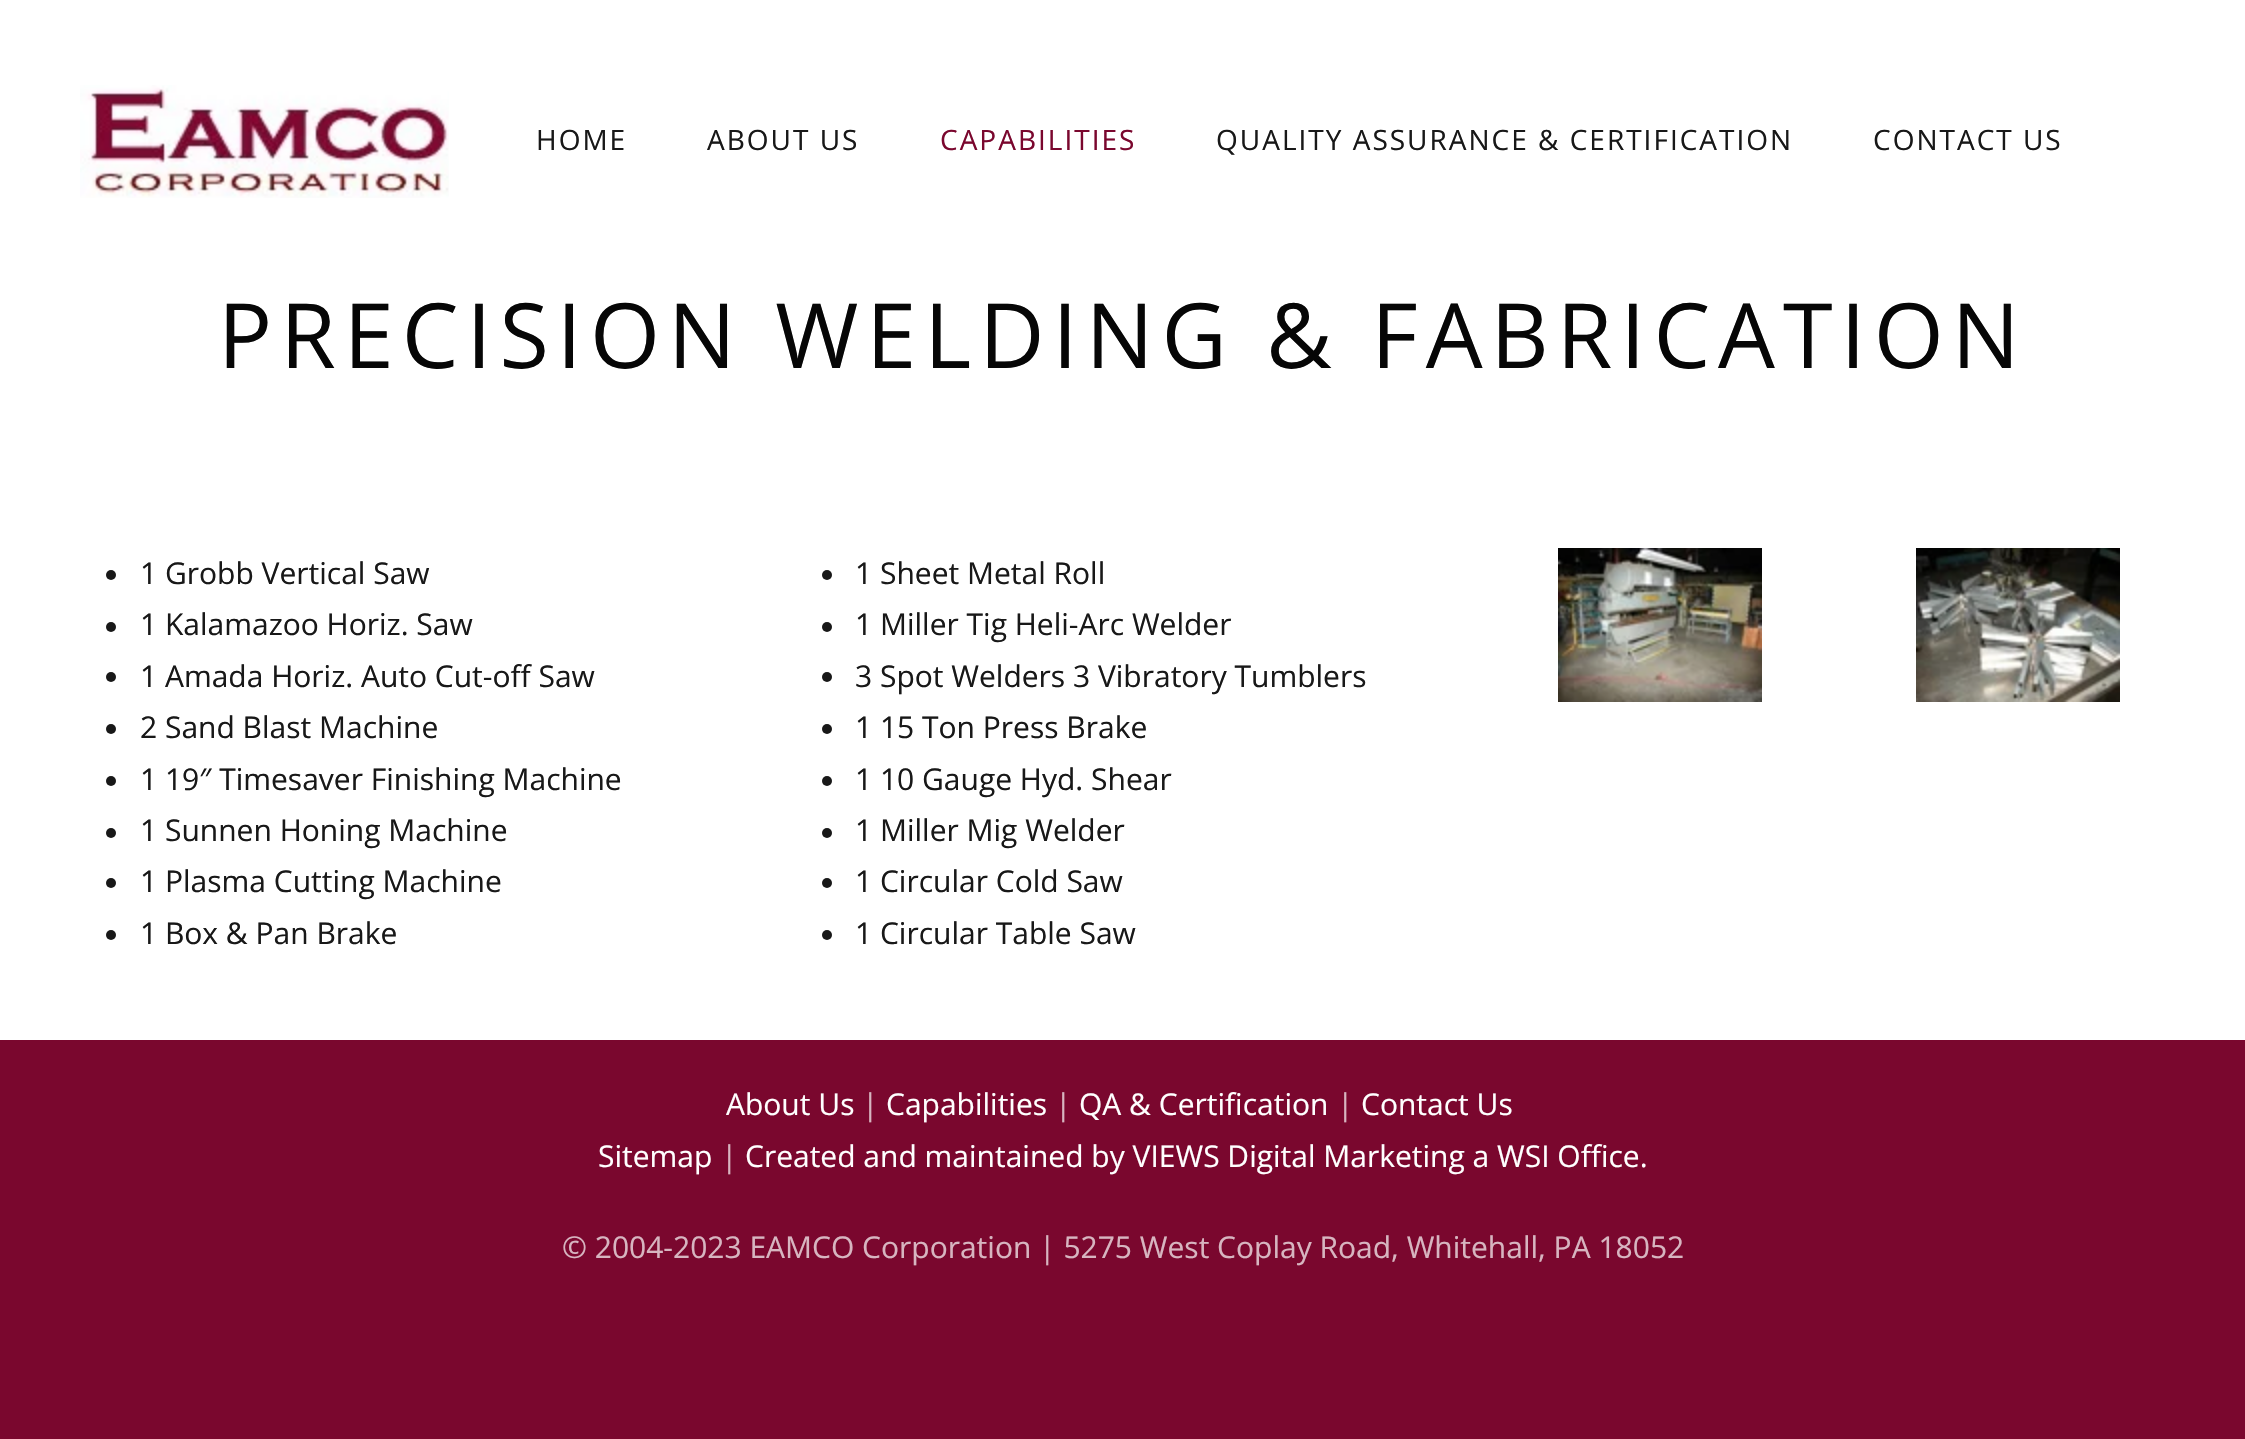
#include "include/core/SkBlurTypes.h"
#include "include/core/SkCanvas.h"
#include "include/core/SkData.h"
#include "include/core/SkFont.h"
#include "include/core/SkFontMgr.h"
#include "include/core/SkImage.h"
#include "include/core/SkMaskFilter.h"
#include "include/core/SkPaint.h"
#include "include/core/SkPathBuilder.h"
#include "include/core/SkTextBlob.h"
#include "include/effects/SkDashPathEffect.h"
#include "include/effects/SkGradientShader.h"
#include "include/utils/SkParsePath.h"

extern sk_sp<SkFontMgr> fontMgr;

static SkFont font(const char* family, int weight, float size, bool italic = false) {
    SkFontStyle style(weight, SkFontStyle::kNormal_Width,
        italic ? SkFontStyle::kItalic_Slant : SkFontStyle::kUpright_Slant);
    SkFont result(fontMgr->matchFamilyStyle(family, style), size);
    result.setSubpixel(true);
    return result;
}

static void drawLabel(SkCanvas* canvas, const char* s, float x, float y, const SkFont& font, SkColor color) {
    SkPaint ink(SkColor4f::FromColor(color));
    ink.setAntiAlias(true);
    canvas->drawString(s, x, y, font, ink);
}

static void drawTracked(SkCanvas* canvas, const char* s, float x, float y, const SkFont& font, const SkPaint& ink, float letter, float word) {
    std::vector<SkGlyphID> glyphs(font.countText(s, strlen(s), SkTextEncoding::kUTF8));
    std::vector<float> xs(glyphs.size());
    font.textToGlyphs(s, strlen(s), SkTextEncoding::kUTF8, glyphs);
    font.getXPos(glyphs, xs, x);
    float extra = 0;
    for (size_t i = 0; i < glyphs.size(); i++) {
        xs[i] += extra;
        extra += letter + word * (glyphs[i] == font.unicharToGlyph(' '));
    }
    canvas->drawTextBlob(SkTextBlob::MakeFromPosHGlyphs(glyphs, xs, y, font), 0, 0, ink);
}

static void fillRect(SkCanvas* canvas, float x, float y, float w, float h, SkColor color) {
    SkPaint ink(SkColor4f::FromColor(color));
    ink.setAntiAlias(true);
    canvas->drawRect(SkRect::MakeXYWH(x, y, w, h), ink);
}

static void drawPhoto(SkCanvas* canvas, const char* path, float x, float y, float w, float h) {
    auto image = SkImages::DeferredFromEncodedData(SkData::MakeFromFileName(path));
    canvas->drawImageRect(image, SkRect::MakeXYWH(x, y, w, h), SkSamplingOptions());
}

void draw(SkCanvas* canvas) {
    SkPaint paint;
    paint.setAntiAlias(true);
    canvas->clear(0xFF7A072E);
    fillRect(canvas, 0, 0, 2245, 1040, 0xFFFFFFFF);
    drawPhoto(canvas, "assets/img1.png", 80, 85, 369, 113);
    SkFont font1 = font("Open Sans", 400, 28);
    paint.setColor(0xFF181818);
    drawTracked(canvas, "HOME", 536, 150, font1, paint, 2, 0);
    drawTracked(canvas, "ABOUT US", 707, 150, font1, paint, 2, 0);
    paint.setColor(0xFF7A072E);
    drawTracked(canvas, "CAPABILITIES", 940, 150, font1, paint, 2, 0);
    paint.setColor(0xFF181818);
    drawTracked(canvas, "QUALITY ASSURANCE & CERTIFICATION", 1216, 150, font1, paint, 2, 0);
    drawTracked(canvas, "CONTACT US", 1873, 150, font1, paint, 2, 0);
    SkFont font2 = font("Open Sans", 400, 90);
    paint.setColor(0xFF060606);
    drawTracked(canvas, "PRECISION WELDING & FABRICATION", 218, 368, font2, paint, 8, 0);
    paint.setColor(0xFF181818);
    canvas->drawCircle(111, 575, 5, paint);
    SkFont font3 = font("Open Sans", 400, 30);
    drawLabel(canvas, "1 Grobb Vertical Saw", 140, 584, font3, 0xFF181818);
    canvas->drawCircle(111, 627, 5, paint);
    drawLabel(canvas, "1 Kalamazoo Horiz. Saw", 140, 635, font3, 0xFF181818);
    canvas->drawCircle(111, 677, 5, paint);
    drawLabel(canvas, "1 Amada Horiz. Auto Cut-off Saw", 140, 687, font3, 0xFF181818);
    canvas->drawCircle(111, 729, 5, paint);
    drawLabel(canvas, "2 Sand Blast Machine", 140, 738, font3, 0xFF181818);
    canvas->drawCircle(111, 781, 5, paint);
    drawLabel(canvas, "1 19″ Timesaver Finishing Machine", 140, 790, font3, 0xFF181818);
    canvas->drawCircle(111, 833, 5, paint);
    drawLabel(canvas, "1 Sunnen Honing Machine", 140, 841, font3, 0xFF181818);
    canvas->drawCircle(111, 883, 5, paint);
    drawLabel(canvas, "1 Plasma Cutting Machine", 140, 892, font3, 0xFF181818);
    canvas->drawCircle(111, 935, 5, paint);
    drawLabel(canvas, "1 Box & Pan Brake", 140, 944, font3, 0xFF181818);
    canvas->drawCircle(827, 575, 5, paint);
    drawLabel(canvas, "1 Sheet Metal Roll", 855, 584, font3, 0xFF181818);
    canvas->drawCircle(827, 627, 5, paint);
    drawLabel(canvas, "1 Miller Tig Heli-Arc Welder", 855, 635, font3, 0xFF181818);
    canvas->drawCircle(827, 677, 5, paint);
    drawLabel(canvas, "3 Spot Welders 3 Vibratory Tumblers", 855, 687, font3, 0xFF181818);
    canvas->drawCircle(827, 729, 5, paint);
    drawLabel(canvas, "1 15 Ton Press Brake", 855, 738, font3, 0xFF181818);
    canvas->drawCircle(827, 781, 5, paint);
    drawLabel(canvas, "1 10 Gauge Hyd. Shear", 855, 790, font3, 0xFF181818);
    canvas->drawCircle(827, 833, 5, paint);
    drawLabel(canvas, "1 Miller Mig Welder", 855, 841, font3, 0xFF181818);
    canvas->drawCircle(827, 883, 5, paint);
    drawLabel(canvas, "1 Circular Cold Saw", 855, 892, font3, 0xFF181818);
    canvas->drawCircle(827, 935, 5, paint);
    drawLabel(canvas, "1 Circular Table Saw", 855, 944, font3, 0xFF181818);
    drawPhoto(canvas, "assets/img2.png", 1558, 548, 204, 154);
    drawPhoto(canvas, "assets/img3.png", 1916, 548, 204, 154);
    drawLabel(canvas, "About Us", 726, 1115, font3, 0xFFFFFFFF);
    drawLabel(canvas, "|", 862, 1115, font3, 0xFFD7B5C0);
    drawLabel(canvas, "Capabilities", 886, 1115, font3, 0xFFFFFFFF);
    drawLabel(canvas, "|", 1055, 1115, font3, 0xFFD7B5C0);
    drawLabel(canvas, "QA & Certification", 1079, 1115, font3, 0xFFFFFFFF);
    drawLabel(canvas, "|", 1337, 1115, font3, 0xFFD7B5C0);
    drawLabel(canvas, "Contact Us", 1361, 1115, font3, 0xFFFFFFFF);
    drawLabel(canvas, "Sitemap", 598, 1167, font3, 0xFFFFFFFF);
    drawLabel(canvas, "|", 721, 1167, font3, 0xFFD7B5C0);
    drawLabel(canvas, "Created and maintained by VIEWS Digital Marketing a WSI Office.", 745, 1167, font3, 0xFFFFFFFF);
    drawLabel(canvas, "© 2004-2023 EAMCO Corporation | 5275 West Coplay Road, Whitehall, PA 18052", 562, 1258, font3, 0xFFD7B5C0);
}
